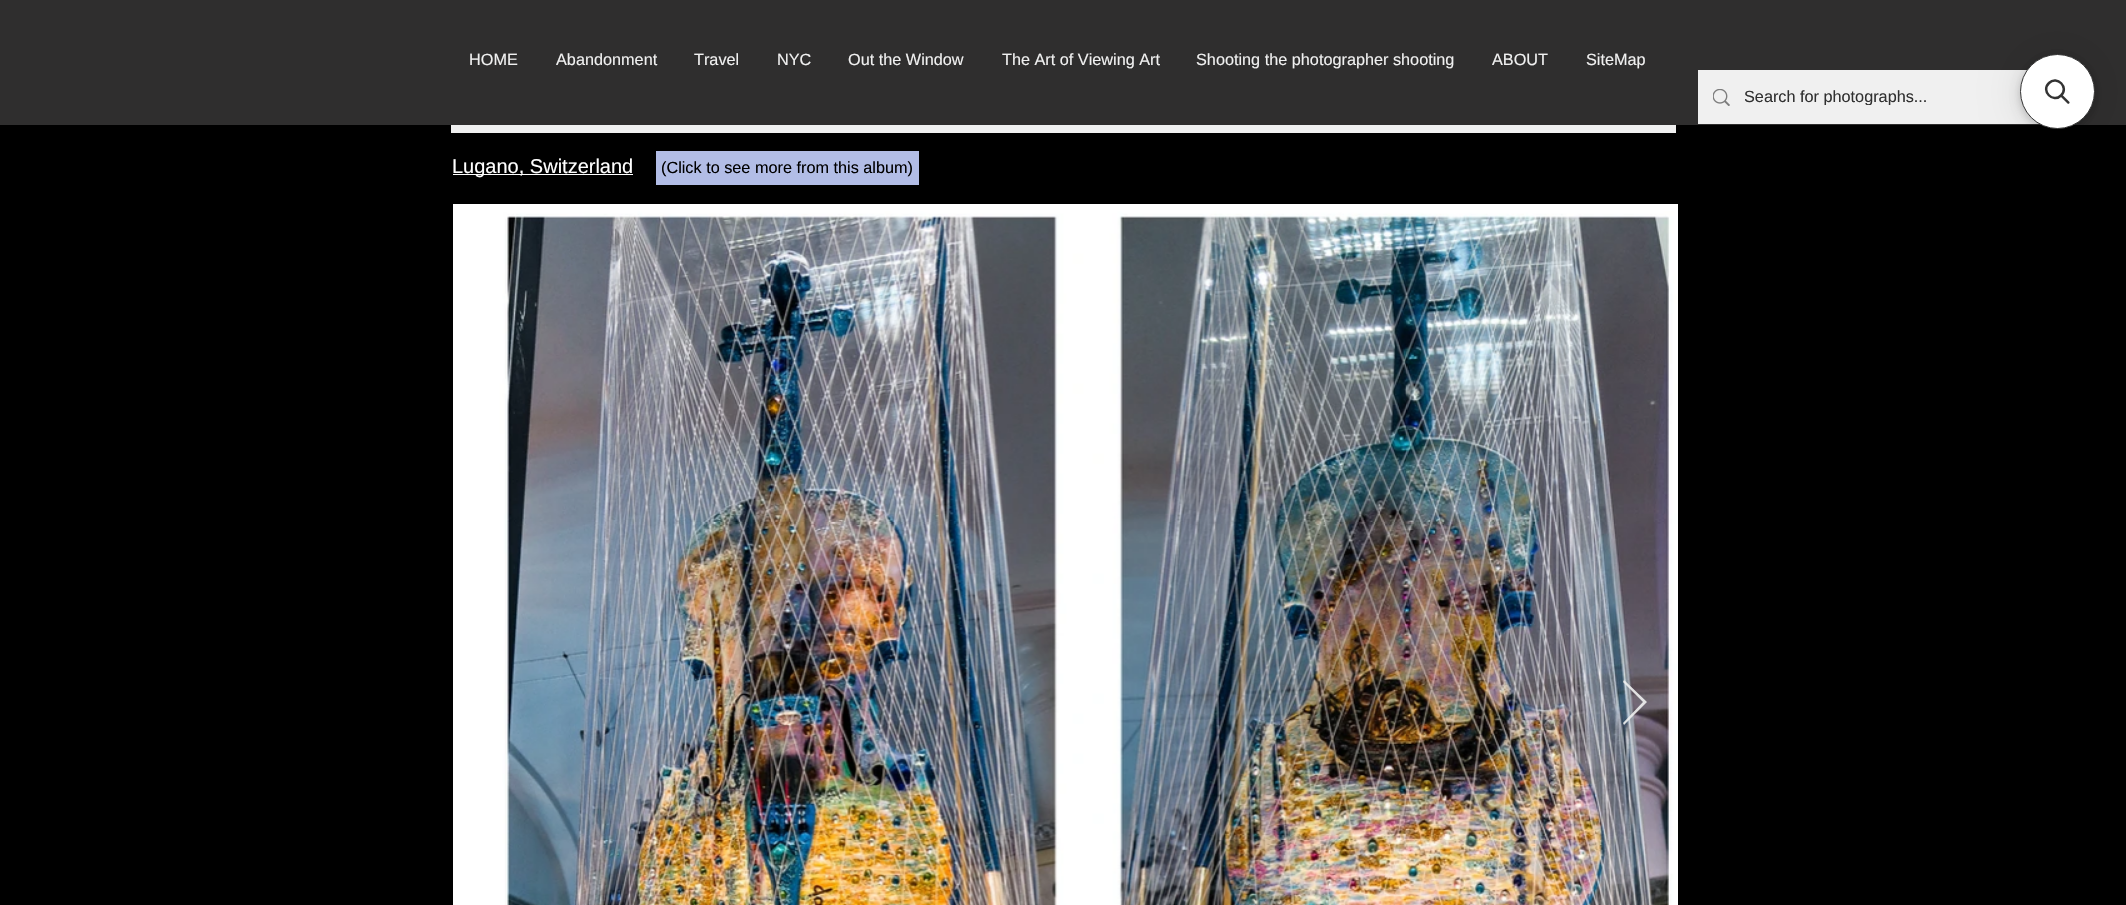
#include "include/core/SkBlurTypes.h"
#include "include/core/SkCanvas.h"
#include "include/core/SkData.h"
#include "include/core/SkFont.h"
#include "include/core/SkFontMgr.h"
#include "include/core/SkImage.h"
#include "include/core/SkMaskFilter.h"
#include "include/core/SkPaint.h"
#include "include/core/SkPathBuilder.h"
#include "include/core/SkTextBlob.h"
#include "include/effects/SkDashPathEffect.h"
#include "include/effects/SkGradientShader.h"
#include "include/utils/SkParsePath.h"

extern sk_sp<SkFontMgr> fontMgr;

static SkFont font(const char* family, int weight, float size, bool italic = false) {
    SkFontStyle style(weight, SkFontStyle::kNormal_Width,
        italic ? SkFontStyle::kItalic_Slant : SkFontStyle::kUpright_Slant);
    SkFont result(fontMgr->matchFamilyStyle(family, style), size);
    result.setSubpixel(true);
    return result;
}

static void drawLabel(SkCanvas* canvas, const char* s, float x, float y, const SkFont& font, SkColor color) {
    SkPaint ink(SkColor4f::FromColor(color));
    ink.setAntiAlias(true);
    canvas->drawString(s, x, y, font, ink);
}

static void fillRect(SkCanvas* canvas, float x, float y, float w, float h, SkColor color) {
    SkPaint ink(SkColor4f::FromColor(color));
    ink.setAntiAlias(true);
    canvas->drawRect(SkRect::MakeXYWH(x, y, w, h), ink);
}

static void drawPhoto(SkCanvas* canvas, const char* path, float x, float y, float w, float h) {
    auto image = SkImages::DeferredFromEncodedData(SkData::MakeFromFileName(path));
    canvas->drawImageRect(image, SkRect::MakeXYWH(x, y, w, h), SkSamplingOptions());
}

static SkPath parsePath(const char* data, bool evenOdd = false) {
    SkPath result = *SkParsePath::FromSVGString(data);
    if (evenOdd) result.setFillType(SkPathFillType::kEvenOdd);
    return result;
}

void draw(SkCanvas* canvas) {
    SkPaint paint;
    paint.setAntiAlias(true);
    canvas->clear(0xFF000000);
    fillRect(canvas, 0, 0, 2126, 125, 0xFF2F2E2E);
    SkFont font1 = font("Liberation Sans", 400, 16.25f);
    drawLabel(canvas, "HOME", 469, 65, font1, 0xFFF0F0F0);
    drawLabel(canvas, "Abandonment", 556, 65, font1, 0xFFF0F0F0);
    drawLabel(canvas, "Travel", 694, 65, font1, 0xFFF0F0F0);
    drawLabel(canvas, "NYC", 777, 65, font1, 0xFFF0F0F0);
    drawLabel(canvas, "Out the Window", 848, 65, font1, 0xFFF0F0F0);
    drawLabel(canvas, "The Art of Viewing Art", 1002, 65, font1, 0xFFF0F0F0);
    drawLabel(canvas, "Shooting the photographer shooting", 1196, 65, font1, 0xFFF0F0F0);
    drawLabel(canvas, "ABOUT", 1492, 65, font1, 0xFFF0F0F0);
    drawLabel(canvas, "SiteMap", 1586, 65, font1, 0xFFF0F0F0);
    fillRect(canvas, 1698, 70, 341, 54, 0xFFF0F0F0);
    drawPhoto(canvas, "assets/img1.png", 1713, 89, 17, 17);
    canvas->save();
    canvas->clipRect(SkRect::MakeXYWH(1745, 86, 279, 19));
    drawLabel(canvas, "Search for photographs...", 1744, 102, font1, 0xFF303030);
    canvas->restore();
    fillRect(canvas, 451, 125, 1225, 8, 0xFFF0F0F0);
    fillRect(canvas, 453, 174, 180, 1, 0xFFFFFFFF);
    SkFont font2 = font("Liberation Sans", 400, 20);
    drawLabel(canvas, "Lugano, Switzerland", 452, 173, font2, 0xFFFFFFFF);
    fillRect(canvas, 656, 151, 263, 34, 0xFFB2BDE6);
    drawLabel(canvas, "(Click to see more from this album)", 661, 173, font1, 0xFF000000);
    drawPhoto(canvas, "assets/img2.png", 453, 204, 1225, 701);
    paint.setColor(0xE6F0F0F0);
    canvas->drawPath(parsePath("M1623 682L1624 680L1647 702L1624 725L1623 723L1643 702Z"), paint);
    paint.setColor(0x0D000000);
    paint.setMaskFilter(SkMaskFilter::MakeBlur(kNormal_SkBlurStyle, 5));
    canvas->drawRoundRect(SkRect::MakeXYWH(2020, 59, 75, 75), 37.5f, 37.5f, paint);
    paint.setMaskFilter(nullptr);
    paint.setColor(0x26000000);
    paint.setMaskFilter(SkMaskFilter::MakeBlur(kNormal_SkBlurStyle, 5));
    canvas->drawRoundRect(SkRect::MakeXYWH(2020, 56, 75, 75), 37.5f, 37.5f, paint);
    paint.setMaskFilter(nullptr);
    paint.setColor(0x1A000000);
    paint.setMaskFilter(SkMaskFilter::MakeBlur(kNormal_SkBlurStyle, 19));
    canvas->drawRoundRect(SkRect::MakeXYWH(2020, 54, 75, 75), 37.5f, 37.5f, paint);
    paint.setMaskFilter(nullptr);
    paint.setColor(0xFFFFFFFF);
    canvas->drawCircle(2057.5f, 91.5f, 37, paint);
    paint.setStroke(true);
    paint.setStrokeWidth(1);
    paint.setColor(0xFF333333);
    canvas->drawCircle(2057.5f, 91.5f, 37, paint);
    paint.setStrokeWidth(2.5f);
    canvas->drawPath(parsePath("M2049 83C2057 75 2069.5 87.5 2061 95.5C2053 103.5 2040.5 91 2049 83Z"), paint);
    paint.setStroke(false);
    canvas->drawPath(parsePath("M2060.5 96.5L2062 94.5L2069.5 102C2070 103 2068.5 104.5 2067.5 103.5Z"), paint);
}
